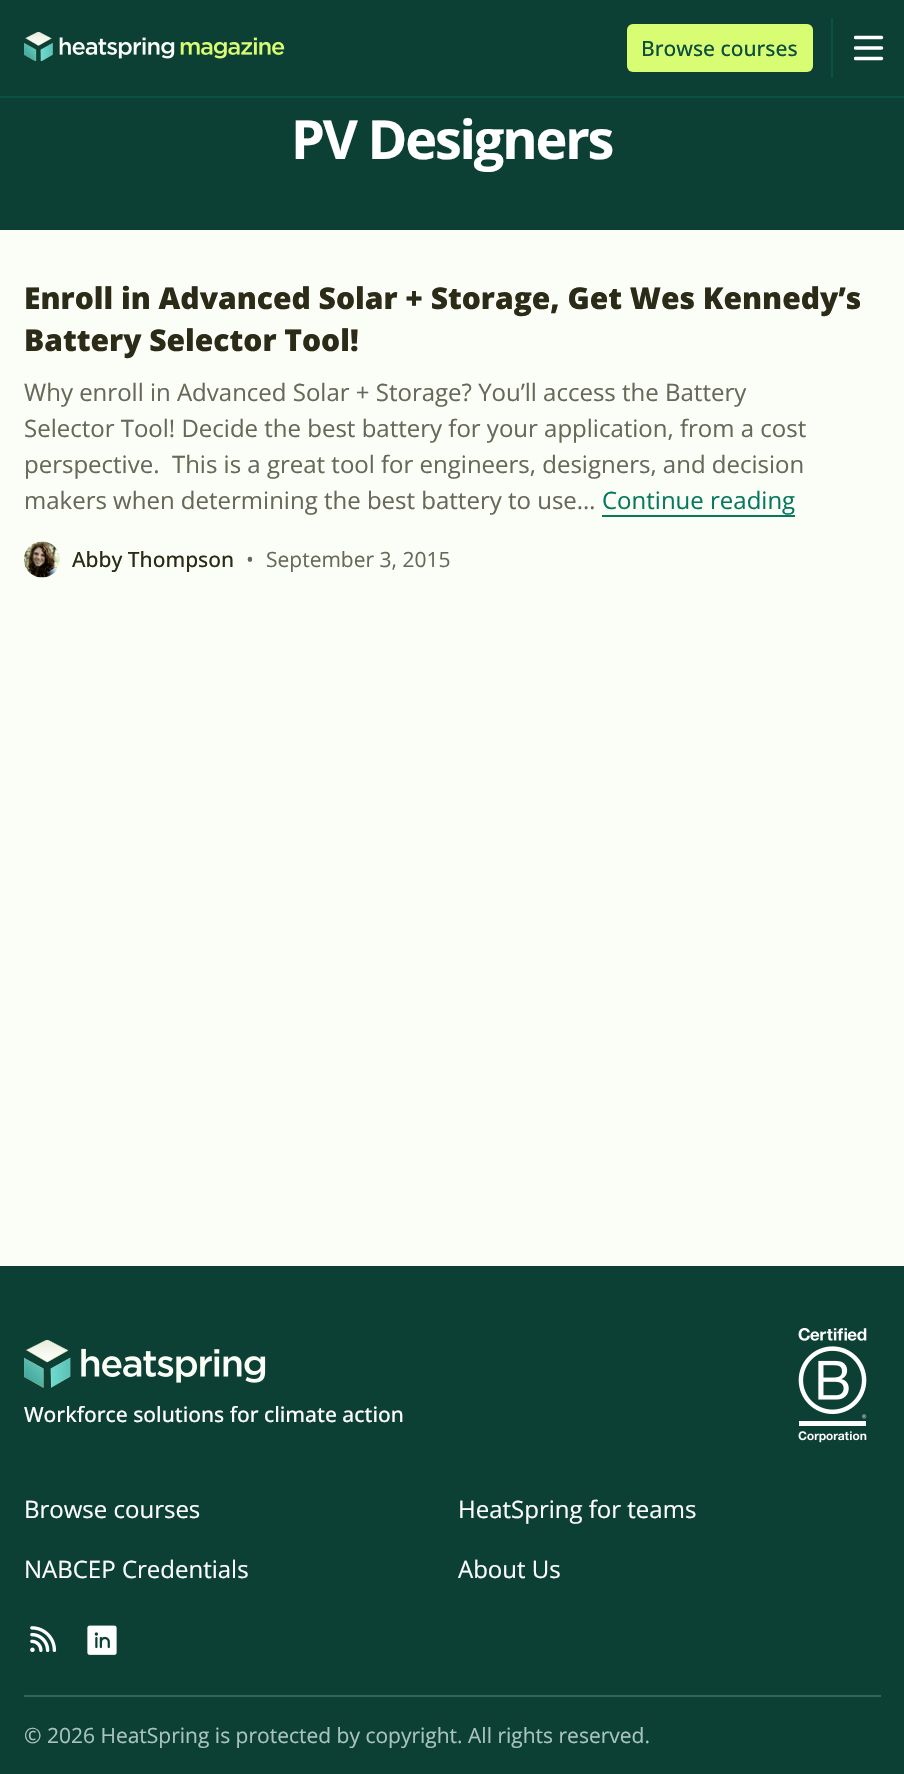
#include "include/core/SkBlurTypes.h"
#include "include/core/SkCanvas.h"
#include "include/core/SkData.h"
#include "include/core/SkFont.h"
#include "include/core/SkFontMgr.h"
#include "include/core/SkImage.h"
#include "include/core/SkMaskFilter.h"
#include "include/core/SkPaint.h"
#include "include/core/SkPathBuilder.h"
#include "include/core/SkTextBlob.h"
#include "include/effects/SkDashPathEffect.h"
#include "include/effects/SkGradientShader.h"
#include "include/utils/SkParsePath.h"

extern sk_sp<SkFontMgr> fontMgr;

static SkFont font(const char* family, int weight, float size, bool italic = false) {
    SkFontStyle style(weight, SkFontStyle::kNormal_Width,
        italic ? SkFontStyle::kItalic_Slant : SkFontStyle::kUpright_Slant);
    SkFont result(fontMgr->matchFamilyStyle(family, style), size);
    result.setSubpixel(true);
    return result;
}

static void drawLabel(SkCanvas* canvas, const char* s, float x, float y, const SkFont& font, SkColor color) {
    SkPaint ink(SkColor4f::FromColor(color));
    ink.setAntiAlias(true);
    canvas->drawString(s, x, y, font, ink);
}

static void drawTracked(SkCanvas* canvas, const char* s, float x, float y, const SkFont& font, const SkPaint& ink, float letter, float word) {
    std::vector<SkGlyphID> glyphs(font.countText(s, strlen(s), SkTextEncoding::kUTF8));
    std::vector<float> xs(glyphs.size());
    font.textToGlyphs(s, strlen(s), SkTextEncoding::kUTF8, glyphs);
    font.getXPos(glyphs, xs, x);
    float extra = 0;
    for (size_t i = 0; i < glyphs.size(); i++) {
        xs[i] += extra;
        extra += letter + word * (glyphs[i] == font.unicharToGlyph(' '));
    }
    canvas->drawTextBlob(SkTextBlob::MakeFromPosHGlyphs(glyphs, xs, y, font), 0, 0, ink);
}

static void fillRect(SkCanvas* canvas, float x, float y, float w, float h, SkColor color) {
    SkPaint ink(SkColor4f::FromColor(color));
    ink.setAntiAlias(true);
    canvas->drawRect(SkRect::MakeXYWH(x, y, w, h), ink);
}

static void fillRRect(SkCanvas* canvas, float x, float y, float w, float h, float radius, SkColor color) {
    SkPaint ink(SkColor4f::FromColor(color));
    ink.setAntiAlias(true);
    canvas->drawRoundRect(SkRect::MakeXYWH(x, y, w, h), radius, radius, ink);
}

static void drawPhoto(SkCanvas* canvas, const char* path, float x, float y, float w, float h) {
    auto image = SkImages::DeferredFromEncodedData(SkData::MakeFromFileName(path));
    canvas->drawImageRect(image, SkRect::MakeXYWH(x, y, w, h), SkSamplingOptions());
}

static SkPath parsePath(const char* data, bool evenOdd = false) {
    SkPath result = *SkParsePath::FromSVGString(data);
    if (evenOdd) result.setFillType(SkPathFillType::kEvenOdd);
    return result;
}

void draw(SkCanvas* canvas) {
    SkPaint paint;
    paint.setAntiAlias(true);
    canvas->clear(0xFFFBFDF7);
    fillRect(canvas, 0, 0, 904, 230, 0xFF0D4034);
    fillRect(canvas, 0, 96, 904, 2, 0xFF0B5141);
    drawPhoto(canvas, "assets/img1.png", 24, 32, 261, 29);
    fillRRect(canvas, 627, 24, 186, 48, 6, 0xFFD9FD72);
    SkFont font1 = font("Open Sans", 500, 21);
    drawLabel(canvas, "Browse courses", 641, 56, font1, 0xFF0C4E3F);
    fillRect(canvas, 831, 18, 2, 60, 0xFF0B5141);
    canvas->save();
    canvas->clipRect(SkRect::MakeXYWH(854, 33, 30, 30));
    paint.setStroke(true);
    paint.setStrokeWidth(3.5f);
    paint.setStrokeCap(SkPaint::kRound_Cap);
    paint.setStrokeJoin(SkPaint::kRound_Join);
    paint.setColor(0xFFFFFFFF);
    canvas->drawPath(parsePath("M855.5 37.5H881.5M855.5 48H881.5M855.5 58.5H881.5"), paint);
    canvas->restore();
    SkFont font2 = font("Open Sans", 700, 54);
    paint.setStroke(false);
    drawTracked(canvas, "PV Designers", 291, 159, font2, paint, -2.2f, 0);
    SkFont font3 = font("Open Sans", 800, 30);
    drawLabel(canvas, "Enroll in Advanced Solar + Storage, Get Wes Kennedy’s", 24, 309, font3, 0xFF2B2B17);
    drawLabel(canvas, "Battery Selector Tool!", 24, 351, font3, 0xFF2B2B17);
    SkFont font4 = font("Open Sans", 400, 24);
    drawLabel(canvas, "Why enroll in Advanced Solar + Storage? You’ll access the Battery", 24, 401, font4, 0xFF686859);
    drawLabel(canvas, "Selector Tool! Decide the best battery for your application, from a cost", 24, 437, font4, 0xFF686859);
    drawLabel(canvas, "perspective.  This is a great tool for engineers, designers, and decision", 24, 473, font4, 0xFF686859);
    drawLabel(canvas, "makers when determining the best battery to use…", 24, 509, font4, 0xFF686859);
    drawLabel(canvas, "Continue reading", 602, 509, font4, 0xFF07785E);
    fillRect(canvas, 602, 515, 193, 2, 0xFF07785E);
    drawPhoto(canvas, "assets/img2.png", 24, 541, 36, 37);
    drawLabel(canvas, "Abby Thompson", 72, 567, font1, 0xFF2B2B17);
    SkFont font5 = font("Open Sans", 400, 21);
    drawLabel(canvas, "•", 246, 567, font5, 0xFF686859);
    drawLabel(canvas, "September 3, 2015", 266, 567, font5, 0xFF686859);
    fillRect(canvas, 0, 1266, 904, 508, 0xFF0D4034);
    drawPhoto(canvas, "assets/img3.png", 24, 1340, 242, 48);
    drawLabel(canvas, "Workforce solutions for climate action", 24, 1422, font1, 0xFFFFFFFF);
    drawPhoto(canvas, "assets/img4.png", 798, 1328, 69, 115);
    drawLabel(canvas, "Browse courses", 24, 1518, font4, 0xFFFFFFFF);
    drawLabel(canvas, "HeatSpring for teams", 458, 1518, font4, 0xFFFFFFFF);
    drawLabel(canvas, "NABCEP Credentials", 24, 1578, font4, 0xFFFFFFFF);
    drawLabel(canvas, "About Us", 458, 1578, font4, 0xFFFFFFFF);
    drawPhoto(canvas, "assets/img5.png", 30, 1626, 27, 26);
    drawPhoto(canvas, "assets/img6.png", 87, 1625, 30, 30);
    fillRect(canvas, 24, 1695, 857, 2, 0xFF34655B);
    drawLabel(canvas, "© 2026 HeatSpring is protected by copyright. All rights reserved.", 24, 1743, font5, 0xFFA9C4BF);
}
